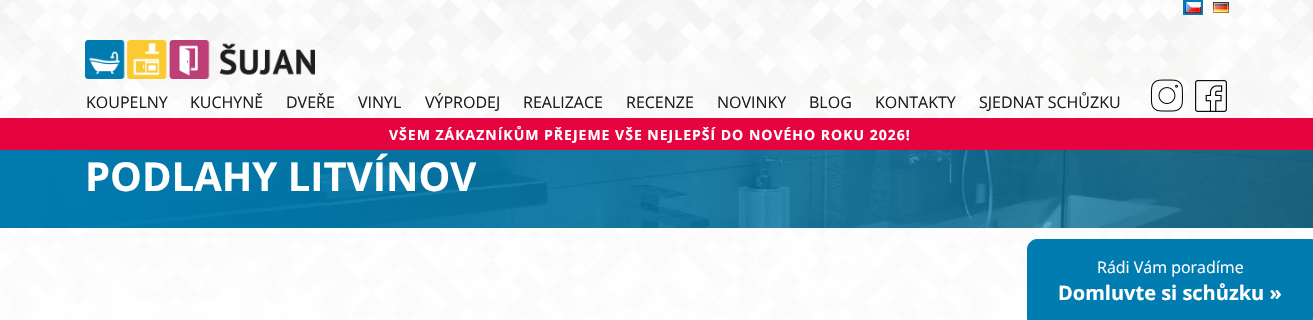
#include "include/core/SkBlurTypes.h"
#include "include/core/SkCanvas.h"
#include "include/core/SkData.h"
#include "include/core/SkFont.h"
#include "include/core/SkFontMgr.h"
#include "include/core/SkImage.h"
#include "include/core/SkMaskFilter.h"
#include "include/core/SkPaint.h"
#include "include/core/SkPathBuilder.h"
#include "include/core/SkTextBlob.h"
#include "include/effects/SkDashPathEffect.h"
#include "include/effects/SkGradientShader.h"
#include "include/utils/SkParsePath.h"

extern sk_sp<SkFontMgr> fontMgr;

static SkFont font(const char* family, int weight, float size, bool italic = false) {
    SkFontStyle style(weight, SkFontStyle::kNormal_Width,
        italic ? SkFontStyle::kItalic_Slant : SkFontStyle::kUpright_Slant);
    SkFont result(fontMgr->matchFamilyStyle(family, style), size);
    result.setSubpixel(true);
    return result;
}

static void drawLabel(SkCanvas* canvas, const char* s, float x, float y, const SkFont& font, SkColor color) {
    SkPaint ink(SkColor4f::FromColor(color));
    ink.setAntiAlias(true);
    canvas->drawString(s, x, y, font, ink);
}

static void drawTracked(SkCanvas* canvas, const char* s, float x, float y, const SkFont& font, const SkPaint& ink, float letter, float word) {
    std::vector<SkGlyphID> glyphs(font.countText(s, strlen(s), SkTextEncoding::kUTF8));
    std::vector<float> xs(glyphs.size());
    font.textToGlyphs(s, strlen(s), SkTextEncoding::kUTF8, glyphs);
    font.getXPos(glyphs, xs, x);
    float extra = 0;
    for (size_t i = 0; i < glyphs.size(); i++) {
        xs[i] += extra;
        extra += letter + word * (glyphs[i] == font.unicharToGlyph(' '));
    }
    canvas->drawTextBlob(SkTextBlob::MakeFromPosHGlyphs(glyphs, xs, y, font), 0, 0, ink);
}

static void fillRect(SkCanvas* canvas, float x, float y, float w, float h, SkColor color) {
    SkPaint ink(SkColor4f::FromColor(color));
    ink.setAntiAlias(true);
    canvas->drawRect(SkRect::MakeXYWH(x, y, w, h), ink);
}

static void drawPhoto(SkCanvas* canvas, const char* path, float x, float y, float w, float h) {
    auto image = SkImages::DeferredFromEncodedData(SkData::MakeFromFileName(path));
    canvas->drawImageRect(image, SkRect::MakeXYWH(x, y, w, h), SkSamplingOptions());
}

static SkPath parsePath(const char* data, bool evenOdd = false) {
    SkPath result = *SkParsePath::FromSVGString(data);
    if (evenOdd) result.setFillType(SkPathFillType::kEvenOdd);
    return result;
}

void draw(SkCanvas* canvas) {
    SkPaint paint;
    paint.setAntiAlias(true);
    canvas->clear(0xFFFFFFFF);
    drawPhoto(canvas, "assets/img1.png", 0, 0, 1313, 320);
    paint.setStroke(true);
    paint.setStrokeWidth(2);
    paint.setColor(0xFF007CB0);
    canvas->drawRect(SkRect::MakeXYWH(1184, 1, 18, 13), paint);
    drawPhoto(canvas, "assets/img2.png", 1185, 2, 16, 11);
    drawPhoto(canvas, "assets/img3.png", 1213, 2, 16, 11);
    drawPhoto(canvas, "assets/img4.png", 85, 40, 230, 39);
    SkFont font1 = font("Open Sans", 400, 16);
    drawLabel(canvas, "KOUPELNY", 86, 108, font1, 0xFF1E1E1E);
    drawLabel(canvas, "KUCHYNĚ", 190, 108, font1, 0xFF1E1E1E);
    drawLabel(canvas, "DVEŘE", 286, 108, font1, 0xFF1E1E1E);
    drawLabel(canvas, "VINYL", 358, 108, font1, 0xFF1E1E1E);
    drawLabel(canvas, "VÝPRODEJ", 425, 108, font1, 0xFF1E1E1E);
    drawLabel(canvas, "REALIZACE", 523, 108, font1, 0xFF1E1E1E);
    drawLabel(canvas, "RECENZE", 626, 108, font1, 0xFF1E1E1E);
    drawLabel(canvas, "NOVINKY", 717, 108, font1, 0xFF1E1E1E);
    drawLabel(canvas, "BLOG", 809, 108, font1, 0xFF1E1E1E);
    drawLabel(canvas, "KONTAKTY", 875, 108, font1, 0xFF1E1E1E);
    drawLabel(canvas, "SJEDNAT SCHŮZKU", 979, 108, font1, 0xFF1E1E1E);
    drawPhoto(canvas, "assets/img5.png", 1150, 79, 33, 33);
    drawPhoto(canvas, "assets/img6.png", 1195, 80, 32, 32);
    fillRect(canvas, 0, 118, 1313, 32, 0xFFE50440);
    SkFont font2 = font("Open Sans", 700, 14);
    paint.setStroke(false);
    paint.setColor(0xFFFFFFFF);
    drawTracked(canvas, "VŠEM ZÁKAZNÍKŮM PŘEJEME VŠE NEJLEPŠÍ DO NOVÉHO ROKU 2026!", 389, 140, font2, paint, 1, 0);
    drawPhoto(canvas, "assets/img7.png", 0, 150, 1313, 78);
    SkFont font3 = font("Open Sans", 700, 40);
    drawLabel(canvas, "PODLAHY LITVÍNOV", 85, 191, font3, 0xFFFFFFFF);
    paint.setColor(0xFF007CB0);
    canvas->drawPath(parsePath("M1037 239.5H1312.5V319.5H1027.5V249C1027.5 244 1032 239.5 1037 239.5Z"), paint);
    paint.setStroke(true);
    paint.setStrokeWidth(1);
    canvas->drawPath(parsePath("M1037 239.5H1312.5V319.5H1027.5V249C1027.5 244 1032 239.5 1037 239.5Z"), paint);
    drawLabel(canvas, "Rádi Vám poradíme", 1097, 273, font1, 0xFFFFFFFF);
    SkFont font4 = font("Open Sans", 700, 20);
    drawLabel(canvas, "Domluvte si schůzku »", 1058, 300, font4, 0xFFFFFFFF);
}
